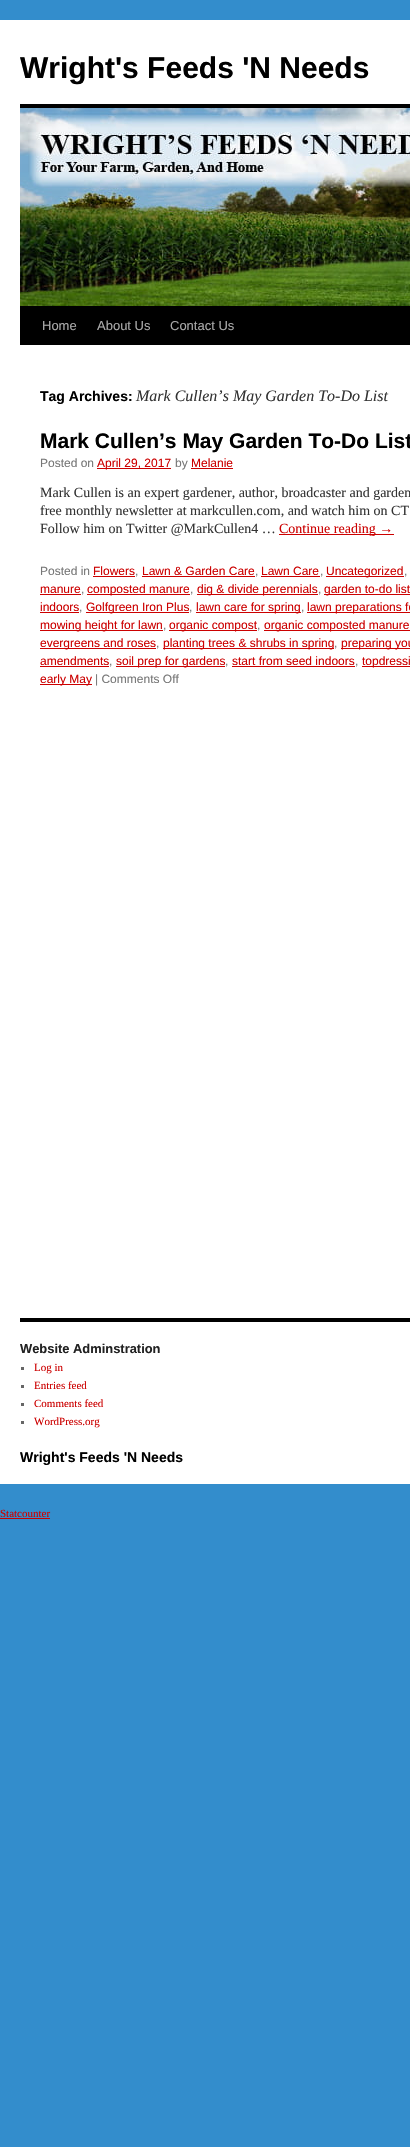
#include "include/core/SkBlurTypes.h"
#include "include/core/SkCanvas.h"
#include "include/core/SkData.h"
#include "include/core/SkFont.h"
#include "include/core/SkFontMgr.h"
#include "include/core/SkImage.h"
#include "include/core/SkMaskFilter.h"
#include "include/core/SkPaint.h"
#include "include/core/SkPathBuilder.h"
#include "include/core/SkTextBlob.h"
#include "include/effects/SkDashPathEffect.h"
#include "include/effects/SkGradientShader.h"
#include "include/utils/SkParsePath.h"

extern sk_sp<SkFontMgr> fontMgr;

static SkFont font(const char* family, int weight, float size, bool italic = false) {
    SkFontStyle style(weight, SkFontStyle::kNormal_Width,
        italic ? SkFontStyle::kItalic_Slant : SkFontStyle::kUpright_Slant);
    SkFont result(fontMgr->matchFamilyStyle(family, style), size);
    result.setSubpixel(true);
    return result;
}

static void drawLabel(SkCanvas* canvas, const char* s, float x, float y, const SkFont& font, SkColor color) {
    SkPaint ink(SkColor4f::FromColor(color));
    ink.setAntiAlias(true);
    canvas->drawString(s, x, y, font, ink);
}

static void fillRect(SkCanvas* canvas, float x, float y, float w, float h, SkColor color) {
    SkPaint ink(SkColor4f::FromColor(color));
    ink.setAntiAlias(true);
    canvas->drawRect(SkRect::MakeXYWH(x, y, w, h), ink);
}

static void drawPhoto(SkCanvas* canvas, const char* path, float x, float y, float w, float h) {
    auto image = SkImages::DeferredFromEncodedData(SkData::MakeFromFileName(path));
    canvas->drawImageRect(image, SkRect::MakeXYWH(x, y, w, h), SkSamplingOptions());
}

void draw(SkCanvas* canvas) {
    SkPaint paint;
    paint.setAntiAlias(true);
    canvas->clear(0xFF338DCC);
    fillRect(canvas, 0, 20, 410, 1464, 0xFFFFFFFF);
    SkFont font1 = font("Liberation Sans", 700, 30);
    drawLabel(canvas, "Wright's Feeds 'N Needs", 20, 78, font1, 0xFF000000);
    fillRect(canvas, 20, 104, 390, 4, 0xFF000000);
    fillRect(canvas, 20, 306, 390, 39, 0xFF000000);
    drawPhoto(canvas, "assets/img1.png", 20, 108, 390, 198);
    SkFont font2 = font("Liberation Sans", 400, 13);
    drawLabel(canvas, "Home", 42, 330, font2, 0xFFAAAAAA);
    drawLabel(canvas, "About Us", 97, 330, font2, 0xFFAAAAAA);
    drawLabel(canvas, "Contact Us", 170, 330, font2, 0xFFAAAAAA);
    SkFont font3 = font("Liberation Sans", 700, 14);
    drawLabel(canvas, "Tag Archives:", 40, 401, font3, 0xFF000000);
    SkFont font4 = font("Liberation Serif", 400, 16, true);
    drawLabel(canvas, "Mark Cullen’s May Garden To-Do List", 136, 401, font4, 0xFF333333);
    SkFont font5 = font("Liberation Sans", 700, 21);
    drawLabel(canvas, "Mark Cullen’s May Garden To-Do List", 40, 448, font5, 0xFF000000);
    SkFont font6 = font("Liberation Sans", 400, 12);
    drawLabel(canvas, "Posted on", 40, 467, font6, 0xFF777777);
    fillRect(canvas, 97, 468, 74, 1, 0xFFCC0000);
    drawLabel(canvas, "April 29, 2017", 97, 467, font6, 0xFFCC0000);
    drawLabel(canvas, "by", 175, 467, font6, 0xFF777777);
    drawLabel(canvas, "Melanie", 191, 467, font6, 0xFFCC0000);
    fillRect(canvas, 191, 468, 42, 1, 0xFFCC0000);
    SkFont font7 = font("Liberation Serif", 400, 14);
    drawLabel(canvas, "Mark Cullen is an expert gardener, author, broadcaster and garden", 40, 497, font7, 0xFF333333);
    drawLabel(canvas, "free monthly newsletter at markcullen.com, and watch him on CT", 40, 515, font7, 0xFF333333);
    drawLabel(canvas, "Follow him on Twitter @MarkCullen4 …", 40, 533, font7, 0xFF333333);
    fillRect(canvas, 279, 534, 115, 1, 0xFFCC0000);
    drawLabel(canvas, "Continue reading →", 279, 533, font7, 0xFFCC0000);
    drawLabel(canvas, "Posted in", 40, 575, font6, 0xFF777777);
    drawLabel(canvas, "Flowers", 93, 575, font6, 0xFFCC0000);
    drawLabel(canvas, ",", 135, 575, font6, 0xFF777777);
    fillRect(canvas, 93, 576, 42, 1, 0xFFCC0000);
    drawLabel(canvas, "Lawn & Garden Care", 142, 575, font6, 0xFFCC0000);
    drawLabel(canvas, ",", 255, 575, font6, 0xFF777777);
    fillRect(canvas, 142, 576, 113, 1, 0xFFCC0000);
    drawLabel(canvas, "Lawn Care", 261, 575, font6, 0xFFCC0000);
    drawLabel(canvas, ",", 320, 575, font6, 0xFF777777);
    fillRect(canvas, 261, 576, 59, 1, 0xFFCC0000);
    fillRect(canvas, 326, 576, 78, 1, 0xFFCC0000);
    drawLabel(canvas, "Uncategorized", 326, 575, font6, 0xFFCC0000);
    drawLabel(canvas, ",", 404, 575, font6, 0xFF777777);
    drawLabel(canvas, "manure", 40, 593, font6, 0xFFCC0000);
    drawLabel(canvas, ",", 81, 593, font6, 0xFF777777);
    fillRect(canvas, 40, 594, 41, 1, 0xFFCC0000);
    fillRect(canvas, 87, 594, 103, 1, 0xFFCC0000);
    drawLabel(canvas, "composted manure", 87, 593, font6, 0xFFCC0000);
    drawLabel(canvas, ",", 190, 593, font6, 0xFF777777);
    fillRect(canvas, 197, 594, 121, 1, 0xFFCC0000);
    drawLabel(canvas, "dig & divide perennials", 197, 593, font6, 0xFFCC0000);
    drawLabel(canvas, ",", 318, 593, font6, 0xFF777777);
    fillRect(canvas, 324, 594, 86, 1, 0xFFCC0000);
    drawLabel(canvas, "garden to-do list", 324, 593, font6, 0xFFCC0000);
    drawLabel(canvas, "indoors", 40, 611, font6, 0xFFCC0000);
    drawLabel(canvas, ",", 79, 611, font6, 0xFF777777);
    fillRect(canvas, 40, 612, 39, 1, 0xFFCC0000);
    fillRect(canvas, 86, 612, 103, 1, 0xFFCC0000);
    drawLabel(canvas, "Golfgreen Iron Plus", 86, 611, font6, 0xFFCC0000);
    drawLabel(canvas, ",", 189, 611, font6, 0xFF777777);
    fillRect(canvas, 196, 612, 105, 1, 0xFFCC0000);
    drawLabel(canvas, "lawn care for spring", 196, 611, font6, 0xFFCC0000);
    drawLabel(canvas, ",", 301, 611, font6, 0xFF777777);
    fillRect(canvas, 307, 612, 103, 1, 0xFFCC0000);
    drawLabel(canvas, "lawn preparations fo", 307, 611, font6, 0xFFCC0000);
    fillRect(canvas, 40, 630, 123, 1, 0xFFCC0000);
    drawLabel(canvas, "mowing height for lawn", 40, 629, font6, 0xFFCC0000);
    drawLabel(canvas, ",", 163, 629, font6, 0xFF777777);
    fillRect(canvas, 169, 630, 88, 1, 0xFFCC0000);
    drawLabel(canvas, "organic compost", 169, 629, font6, 0xFFCC0000);
    drawLabel(canvas, ",", 257, 629, font6, 0xFF777777);
    fillRect(canvas, 264, 630, 146, 1, 0xFFCC0000);
    drawLabel(canvas, "organic composted manure", 264, 629, font6, 0xFFCC0000);
    fillRect(canvas, 40, 648, 116, 1, 0xFFCC0000);
    drawLabel(canvas, "evergreens and roses", 40, 647, font6, 0xFFCC0000);
    drawLabel(canvas, ",", 156, 647, font6, 0xFF777777);
    fillRect(canvas, 163, 648, 171, 1, 0xFFCC0000);
    drawLabel(canvas, "planting trees & shrubs in spring", 163, 647, font6, 0xFFCC0000);
    drawLabel(canvas, ",", 334, 647, font6, 0xFF777777);
    fillRect(canvas, 341, 648, 69, 1, 0xFFCC0000);
    drawLabel(canvas, "preparing you", 341, 647, font6, 0xFFCC0000);
    drawLabel(canvas, "amendments", 40, 665, font6, 0xFFCC0000);
    drawLabel(canvas, ",", 109, 665, font6, 0xFF777777);
    fillRect(canvas, 40, 666, 69, 1, 0xFFCC0000);
    fillRect(canvas, 116, 666, 109, 1, 0xFFCC0000);
    drawLabel(canvas, "soil prep for gardens", 116, 665, font6, 0xFFCC0000);
    drawLabel(canvas, ",", 225, 665, font6, 0xFF777777);
    drawLabel(canvas, "start from seed indoors", 232, 665, font6, 0xFFCC0000);
    drawLabel(canvas, ",", 355, 665, font6, 0xFF777777);
    fillRect(canvas, 232, 666, 123, 1, 0xFFCC0000);
    fillRect(canvas, 362, 666, 48, 1, 0xFFCC0000);
    drawLabel(canvas, "topdressi", 362, 665, font6, 0xFFCC0000);
    fillRect(canvas, 40, 684, 52, 1, 0xFFCC0000);
    drawLabel(canvas, "early May", 40, 683, font6, 0xFFCC0000);
    drawLabel(canvas, "| Comments Off", 95, 683, font6, 0xFF777777);
    fillRect(canvas, 20, 1318, 390, 4, 0xFF000000);
    SkFont font8 = font("Liberation Sans", 700, 12.9f);
    drawLabel(canvas, "Website Adminstration", 20, 1353, font8, 0xFF222222);
    fillRect(canvas, 21, 1367, 3, 3, 0xFF666666);
    SkFont font9 = font("Liberation Serif", 400, 11);
    drawLabel(canvas, "Log in", 34, 1371, font9, 0xFFCC0000);
    fillRect(canvas, 21, 1385, 3, 3, 0xFF666666);
    drawLabel(canvas, "Entries feed", 34, 1389, font9, 0xFFCC0000);
    fillRect(canvas, 21, 1403, 3, 3, 0xFF666666);
    drawLabel(canvas, "Comments feed", 34, 1407, font9, 0xFFCC0000);
    fillRect(canvas, 21, 1421, 3, 3, 0xFF666666);
    drawLabel(canvas, "WordPress.org", 34, 1425, font9, 0xFFCC0000);
    drawLabel(canvas, "Wright's Feeds 'N Needs", 20, 1462, font3, 0xFF000000);
    drawLabel(canvas, "Statcounter", 0, 1517, font9, 0xFFCC0000);
    fillRect(canvas, 0, 1518, 50, 1, 0xFFCC0000);
}
